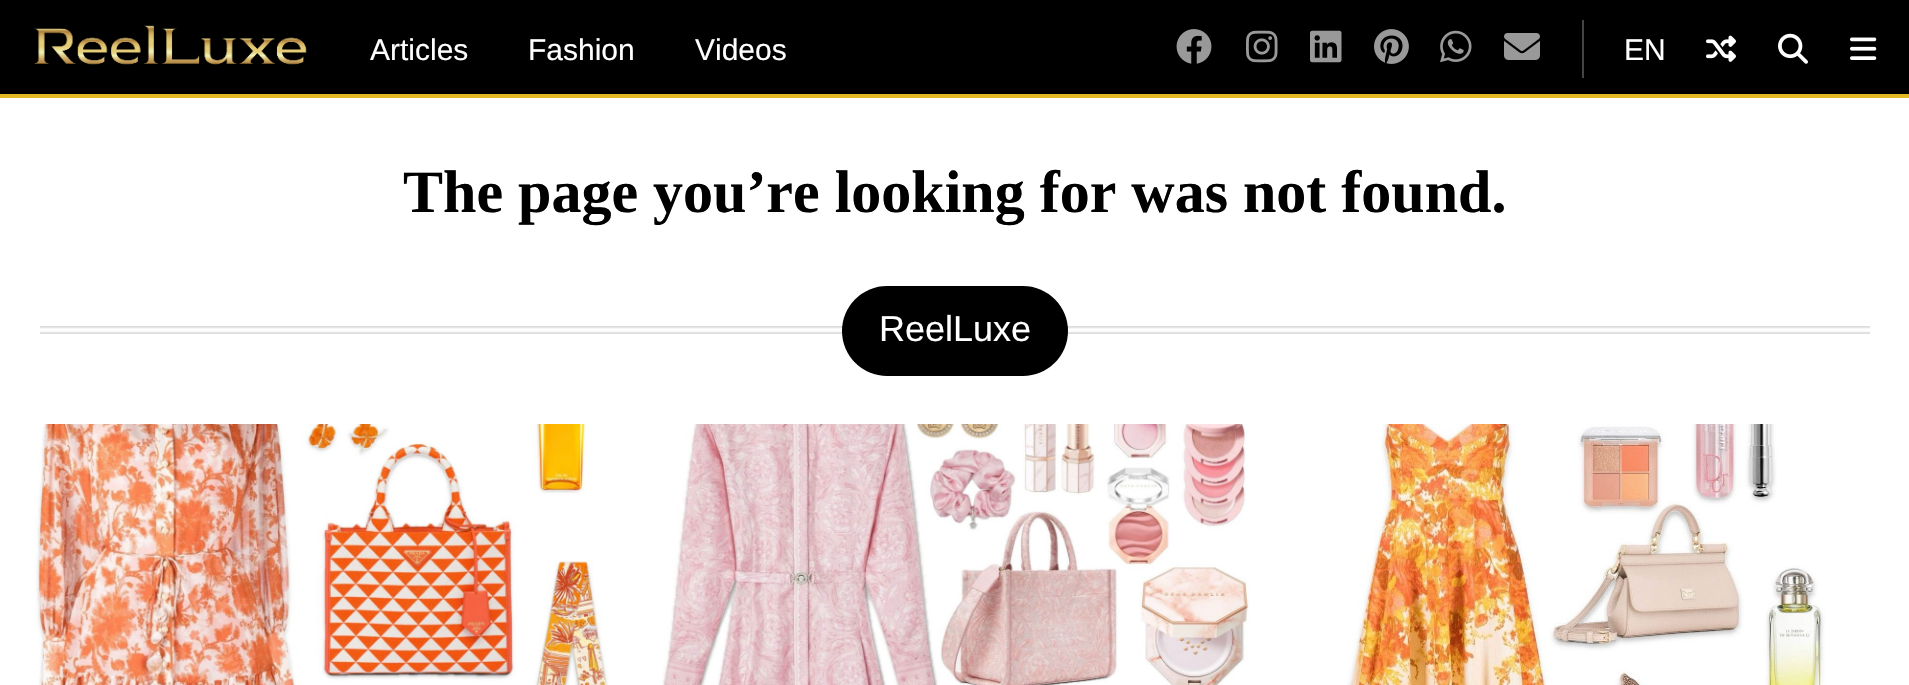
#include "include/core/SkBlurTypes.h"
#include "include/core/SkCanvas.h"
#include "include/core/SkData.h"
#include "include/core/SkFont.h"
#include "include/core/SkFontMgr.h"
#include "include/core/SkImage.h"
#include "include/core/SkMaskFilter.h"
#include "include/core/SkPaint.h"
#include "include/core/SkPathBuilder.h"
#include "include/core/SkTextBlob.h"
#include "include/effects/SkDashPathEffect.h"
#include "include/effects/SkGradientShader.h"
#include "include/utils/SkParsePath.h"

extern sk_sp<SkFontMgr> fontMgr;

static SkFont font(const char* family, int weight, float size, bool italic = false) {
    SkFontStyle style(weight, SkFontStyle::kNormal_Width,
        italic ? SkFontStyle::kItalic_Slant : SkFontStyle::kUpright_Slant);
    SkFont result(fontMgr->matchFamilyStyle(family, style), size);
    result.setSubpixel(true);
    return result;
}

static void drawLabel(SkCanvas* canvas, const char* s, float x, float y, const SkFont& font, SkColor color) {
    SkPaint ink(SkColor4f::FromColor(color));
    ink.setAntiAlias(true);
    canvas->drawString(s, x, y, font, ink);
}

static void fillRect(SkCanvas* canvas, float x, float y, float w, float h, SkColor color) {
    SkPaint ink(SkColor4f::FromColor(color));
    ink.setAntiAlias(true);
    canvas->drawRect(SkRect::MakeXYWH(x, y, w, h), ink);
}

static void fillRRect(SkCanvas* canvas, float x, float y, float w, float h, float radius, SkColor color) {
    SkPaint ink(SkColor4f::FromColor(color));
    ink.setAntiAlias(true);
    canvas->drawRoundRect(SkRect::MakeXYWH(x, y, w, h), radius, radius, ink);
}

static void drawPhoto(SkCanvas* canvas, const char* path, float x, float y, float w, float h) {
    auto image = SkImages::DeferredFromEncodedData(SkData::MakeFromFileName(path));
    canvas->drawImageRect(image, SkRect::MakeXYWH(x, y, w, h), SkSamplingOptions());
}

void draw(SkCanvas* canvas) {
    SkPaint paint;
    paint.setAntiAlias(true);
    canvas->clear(0xFF000000);
    fillRect(canvas, 0, 98, 1909, 587, 0xFFFFFFFF);
    fillRect(canvas, 0, 94, 1909, 4, 0xFFE1B924);
    drawPhoto(canvas, "assets/img1.png", 34, 25, 273, 40);
    SkFont font1 = font("Liberation Sans", 400, 30);
    drawLabel(canvas, "Articles", 370, 60, font1, 0xFFFFFFFF);
    drawLabel(canvas, "Fashion", 528, 60, font1, 0xFFFFFFFF);
    drawLabel(canvas, "Videos", 695, 60, font1, 0xFFFFFFFF);
    drawPhoto(canvas, "assets/img2.png", 1176, 29, 36, 35);
    drawPhoto(canvas, "assets/img3.png", 1246, 30, 32, 33);
    drawPhoto(canvas, "assets/img4.png", 1310, 30, 32, 33);
    drawPhoto(canvas, "assets/img5.png", 1374, 29, 35, 35);
    drawPhoto(canvas, "assets/img6.png", 1440, 30, 32, 33);
    drawPhoto(canvas, "assets/img7.png", 1504, 33, 36, 27);
    fillRect(canvas, 1582, 20, 2, 58, 0xFF444444);
    drawLabel(canvas, "EN", 1624, 60, font1, 0xFFFFFFFF);
    drawPhoto(canvas, "assets/img8.png", 1706, 35, 30, 27);
    drawPhoto(canvas, "assets/img9.png", 1778, 33, 30, 31);
    drawPhoto(canvas, "assets/img10.png", 1850, 37, 27, 23);
    SkFont font2 = font("Liberation Serif", 700, 60);
    drawLabel(canvas, "The page you’re looking for was not found.", 403, 212, font2, 0xFF000000);
    drawPhoto(canvas, "assets/img11.png", 40, 326, 1830, 8);
    fillRRect(canvas, 842, 286, 226, 90, 45, 0xFF000000);
    SkFont font3 = font("Liberation Sans", 400, 36);
    drawLabel(canvas, "ReelLuxe", 879, 341, font3, 0xFFFFFFFF);
    drawPhoto(canvas, "assets/img12.png", 34, 424, 575, 261);
    drawPhoto(canvas, "assets/img13.png", 662, 424, 588, 261);
    drawPhoto(canvas, "assets/img14.png", 1347, 424, 478, 261);
}
